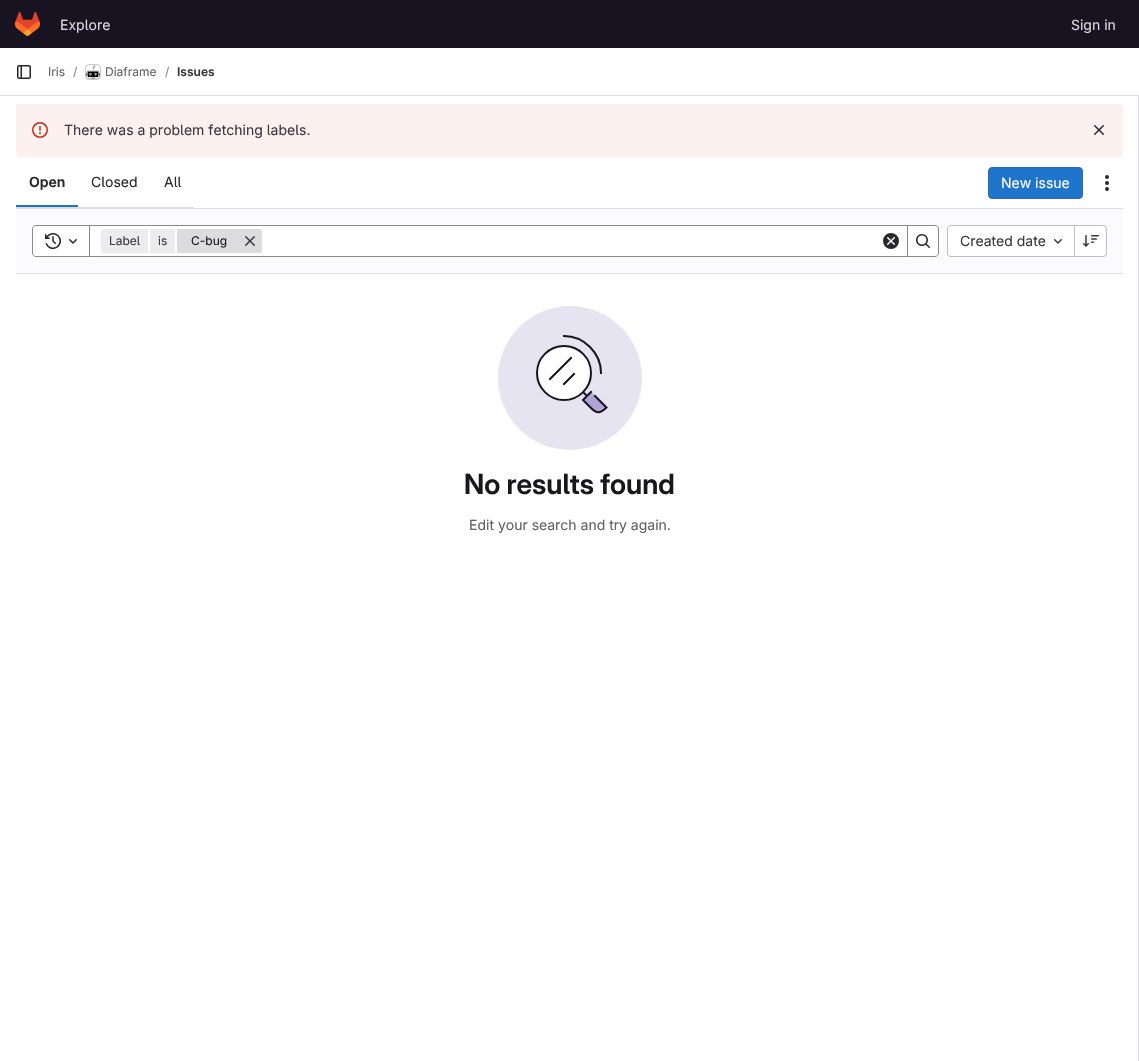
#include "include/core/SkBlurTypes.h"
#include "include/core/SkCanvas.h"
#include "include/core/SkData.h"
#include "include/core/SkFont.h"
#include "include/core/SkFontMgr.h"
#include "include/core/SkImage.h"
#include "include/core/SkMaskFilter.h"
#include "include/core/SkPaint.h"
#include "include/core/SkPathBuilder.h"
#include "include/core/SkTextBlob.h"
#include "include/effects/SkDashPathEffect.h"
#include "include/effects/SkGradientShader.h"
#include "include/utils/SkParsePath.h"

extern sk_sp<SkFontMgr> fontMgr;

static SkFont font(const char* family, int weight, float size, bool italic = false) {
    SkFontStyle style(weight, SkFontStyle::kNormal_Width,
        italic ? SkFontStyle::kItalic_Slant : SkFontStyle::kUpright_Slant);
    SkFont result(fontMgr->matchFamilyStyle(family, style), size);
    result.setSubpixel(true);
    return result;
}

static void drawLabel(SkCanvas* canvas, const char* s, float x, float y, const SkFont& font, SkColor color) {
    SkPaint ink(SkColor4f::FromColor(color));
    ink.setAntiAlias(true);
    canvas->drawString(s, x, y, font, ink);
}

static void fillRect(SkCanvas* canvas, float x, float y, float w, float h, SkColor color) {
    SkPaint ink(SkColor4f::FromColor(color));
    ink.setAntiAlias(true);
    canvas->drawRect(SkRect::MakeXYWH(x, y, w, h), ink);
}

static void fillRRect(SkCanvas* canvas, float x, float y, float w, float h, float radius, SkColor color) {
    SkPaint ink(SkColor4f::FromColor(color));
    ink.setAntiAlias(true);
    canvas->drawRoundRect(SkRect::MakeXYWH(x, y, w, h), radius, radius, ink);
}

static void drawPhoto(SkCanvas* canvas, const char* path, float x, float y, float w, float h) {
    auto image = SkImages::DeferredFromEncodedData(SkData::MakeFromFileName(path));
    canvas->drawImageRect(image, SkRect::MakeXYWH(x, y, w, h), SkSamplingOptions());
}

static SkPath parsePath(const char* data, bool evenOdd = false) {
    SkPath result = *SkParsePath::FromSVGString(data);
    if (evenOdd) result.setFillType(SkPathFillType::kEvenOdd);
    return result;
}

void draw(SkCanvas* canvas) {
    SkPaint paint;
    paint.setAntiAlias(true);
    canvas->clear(0xFFFFFFFF);
    fillRect(canvas, 0, 0, 1139, 48, 0xFF171321);
    drawPhoto(canvas, "assets/img1.png", 15, 12, 25, 24);
    SkFont font1 = font("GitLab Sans", 400, 14);
    drawLabel(canvas, "Explore", 60, 30, font1, 0xFFDCDCDE);
    drawLabel(canvas, "Sign in", 1071, 30, font1, 0xFFDCDCDE);
    fillRect(canvas, 0, 95, 1139, 1, 0xFFDCDCDE);
    drawPhoto(canvas, "assets/img2.png", 17, 65, 14, 14);
    SkFont font2 = font("GitLab Sans", 400, 12);
    drawLabel(canvas, "Iris", 48, 76, font2, 0xFF626168);
    drawLabel(canvas, "/", 73, 76, font2, 0xFF89888D);
    paint.setStroke(true);
    paint.setStrokeWidth(1);
    paint.setColor(0xFFDCDCDE);
    canvas->drawRoundRect(SkRect::MakeXYWH(85.5f, 64.5f, 15, 15), 3.5f, 3.5f, paint);
    drawPhoto(canvas, "assets/img3.png", 86, 65, 14, 14);
    paint.setColor(0x14050506);
    canvas->drawRoundRect(SkRect::MakeXYWH(85.5f, 64.5f, 15, 15), 3.5f, 3.5f, paint);
    drawLabel(canvas, "Diaframe", 105, 76, font2, 0xFF626168);
    drawLabel(canvas, "/", 165, 76, font2, 0xFF89888D);
    SkFont font3 = font("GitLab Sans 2", 600, 12);
    drawLabel(canvas, "Issues", 177, 76, font3, 0xFF3A383F);
    fillRRect(canvas, 16, 104, 1107, 53, 4, 0xFFFCF1EF);
    drawPhoto(canvas, "assets/img4.png", 32, 122, 16, 16);
    drawLabel(canvas, "There was a problem fetching labels.", 64, 135, font1, 0xFF3A383F);
    drawPhoto(canvas, "assets/img5.png", 1094, 125, 10, 10);
    fillRect(canvas, 16, 208, 1107, 1, 0xFFDCDCDE);
    fillRect(canvas, 16, 207, 178, 1, 0xFFDCDCDE);
    SkFont font4 = font("GitLab Sans 2", 600, 14);
    drawLabel(canvas, "Open", 29, 187, font4, 0xFF28272D);
    fillRect(canvas, 16, 205, 62, 2, 0xFF1F75CB);
    drawLabel(canvas, "Closed", 91, 187, font1, 0xFF28272D);
    drawLabel(canvas, "All", 164, 187, font1, 0xFF28272D);
    paint.setStroke(false);
    paint.setColor(0xFF1F75CB);
    canvas->drawRoundRect(SkRect::MakeXYWH(988.5f, 167.5f, 94, 31), 3.5f, 3.5f, paint);
    paint.setStroke(true);
    paint.setColor(0xFF2F68B4);
    canvas->drawRoundRect(SkRect::MakeXYWH(988.5f, 167.5f, 94, 31), 3.5f, 3.5f, paint);
    drawLabel(canvas, "New issue", 1001, 188, font1, 0xFFFFFFFF);
    drawPhoto(canvas, "assets/img6.png", 1105, 175, 4, 16);
    fillRect(canvas, 1138, 96, 1, 965, 0xFFDCDCDE);
    fillRect(canvas, 16, 209, 1107, 64, 0xFFFBFAFD);
    fillRect(canvas, 16, 273, 1107, 1, 0xFFDCDCDE);
    paint.setStroke(false);
    paint.setColor(0xFFFFFFFF);
    canvas->drawRect(SkRect::MakeXYWH(89.5f, 225.5f, 818, 31), paint);
    paint.setStroke(true);
    paint.setColor(0xFF89888D);
    canvas->drawRect(SkRect::MakeXYWH(89.5f, 225.5f, 818, 31), paint);
    paint.setStroke(false);
    paint.setColor(0xFFFFFFFF);
    canvas->drawPath(parsePath("M36 225.5H89.5V256.5H36C34 256.5 32.5 255 32.5 253V229C32.5 227 34 225.5 36 225.5Z"), paint);
    paint.setStroke(true);
    paint.setColor(0xFF89888D);
    canvas->drawPath(parsePath("M36 225.5H89.5V256.5H36C34 256.5 32.5 255 32.5 253V229C32.5 227 34 225.5 36 225.5Z"), paint);
    drawPhoto(canvas, "assets/img7.png", 45, 233, 16, 16);
    drawPhoto(canvas, "assets/img8.png", 69, 239, 8, 5);
    paint.setStroke(false);
    paint.setColor(0xFFECECEF);
    canvas->drawPath(parsePath("M103 229H148V253H103C102 253 101 252 101 251V231C101 230 102 229 103 229Z"), paint);
    drawLabel(canvas, "Label", 109, 245, font2, 0xFF3A383F);
    fillRect(canvas, 150, 229, 25, 24, 0xFFECECEF);
    drawLabel(canvas, "is", 158, 245, font2, 0xFF3A383F);
    paint.setColor(0xFFDCDCDE);
    canvas->drawPath(parsePath("M177 229H260C261 229 262 230 262 231V251C262 252 261 253 260 253H177Z"), paint);
    drawLabel(canvas, "C-bug", 191, 245, font2, 0xFF18171D);
    drawPhoto(canvas, "assets/img9.png", 245, 236, 10, 10);
    drawPhoto(canvas, "assets/img10.png", 883, 233, 16, 16);
    paint.setColor(0xFFFFFFFF);
    canvas->drawPath(parsePath("M907.5 225.5H935C937 225.5 938.5 227 938.5 229V253C938.5 255 937 256.5 935 256.5H907.5Z"), paint);
    paint.setStroke(true);
    paint.setColor(0xFF89888D);
    canvas->drawPath(parsePath("M907.5 225.5H935C937 225.5 938.5 227 938.5 229V253C938.5 255 937 256.5 935 256.5H907.5Z"), paint);
    drawPhoto(canvas, "assets/img11.png", 916, 234, 14, 14);
    paint.setStroke(false);
    paint.setColor(0xFFFFFFFF);
    canvas->drawPath(parsePath("M951 226H1074V256H951C949.5 256 948 254.5 948 253V229C948 227.5 949.5 226 951 226Z"), paint);
    paint.setColor(0xFFBFBFC3);
    canvas->drawPath(parsePath("M951 225H1074V257H951C949 257 947 255 947 253V229C947 227 949 225 951 225ZM951 226H1074V256H951C949 256 948 255 948 253V229C948 227 949 226 951 226Z", true), paint);
    drawLabel(canvas, "Created date", 960, 246, font1, 0xFF3A383F);
    drawPhoto(canvas, "assets/img12.png", 1054, 239, 8, 5);
    paint.setColor(0xFFFFFFFF);
    canvas->drawPath(parsePath("M1075 226H1103C1104.5 226 1106 227.5 1106 229V253C1106 254.5 1104.5 256 1103 256H1075Z"), paint);
    paint.setColor(0xFFBFBFC3);
    canvas->drawPath(parsePath("M1075 225H1103C1105 225 1107 227 1107 229V253C1107 255 1105 257 1103 257H1075ZM1075 226H1103C1104.5 226 1106 227.5 1106 229V253C1106 254.5 1104.5 256 1103 256H1075Z", true), paint);
    fillRect(canvas, 1074, 225, 1, 32, 0xFFBFBFC3);
    drawPhoto(canvas, "assets/img13.png", 1083, 235, 16, 12);
    paint.setColor(0xFFE7E4F2);
    canvas->drawCircle(570, 378, 72, paint);
    paint.setColor(0xFFAEA5D6);
    canvas->drawPath(parsePath("M591 392L583 400L591 408C597.5 414.5 601 413 606.5 407.5Z"), paint);
    paint.setStroke(true);
    paint.setStrokeWidth(2);
    paint.setStrokeCap(SkPaint::kSquare_Cap);
    paint.setColor(0xFF171321);
    canvas->drawPath(parsePath("M591 392L583 400L591 408C597.5 414.5 601 413 606.5 407.5L595 396M583 392L586 395"), paint);
    paint.setStroke(false);
    paint.setColor(0xFFFFFFFF);
    canvas->drawCircle(564, 373, 27, paint);
    paint.setStroke(true);
    paint.setStrokeCap(SkPaint::kButt_Cap);
    paint.setColor(0xFF171321);
    canvas->drawCircle(564, 373, 27, paint);
    paint.setStrokeCap(SkPaint::kSquare_Cap);
    canvas->drawPath(parsePath("M564 384L574 374M550 379L571 358M601 373C601 353 584 336 564 336"), paint);
    SkFont font5 = font("GitLab Sans", 600, 28);
    drawLabel(canvas, "No results found", 464, 494, font5, 0xFF18171D);
    drawLabel(canvas, "Edit your search and try again.", 469, 530, font1, 0xFF626168);
}
